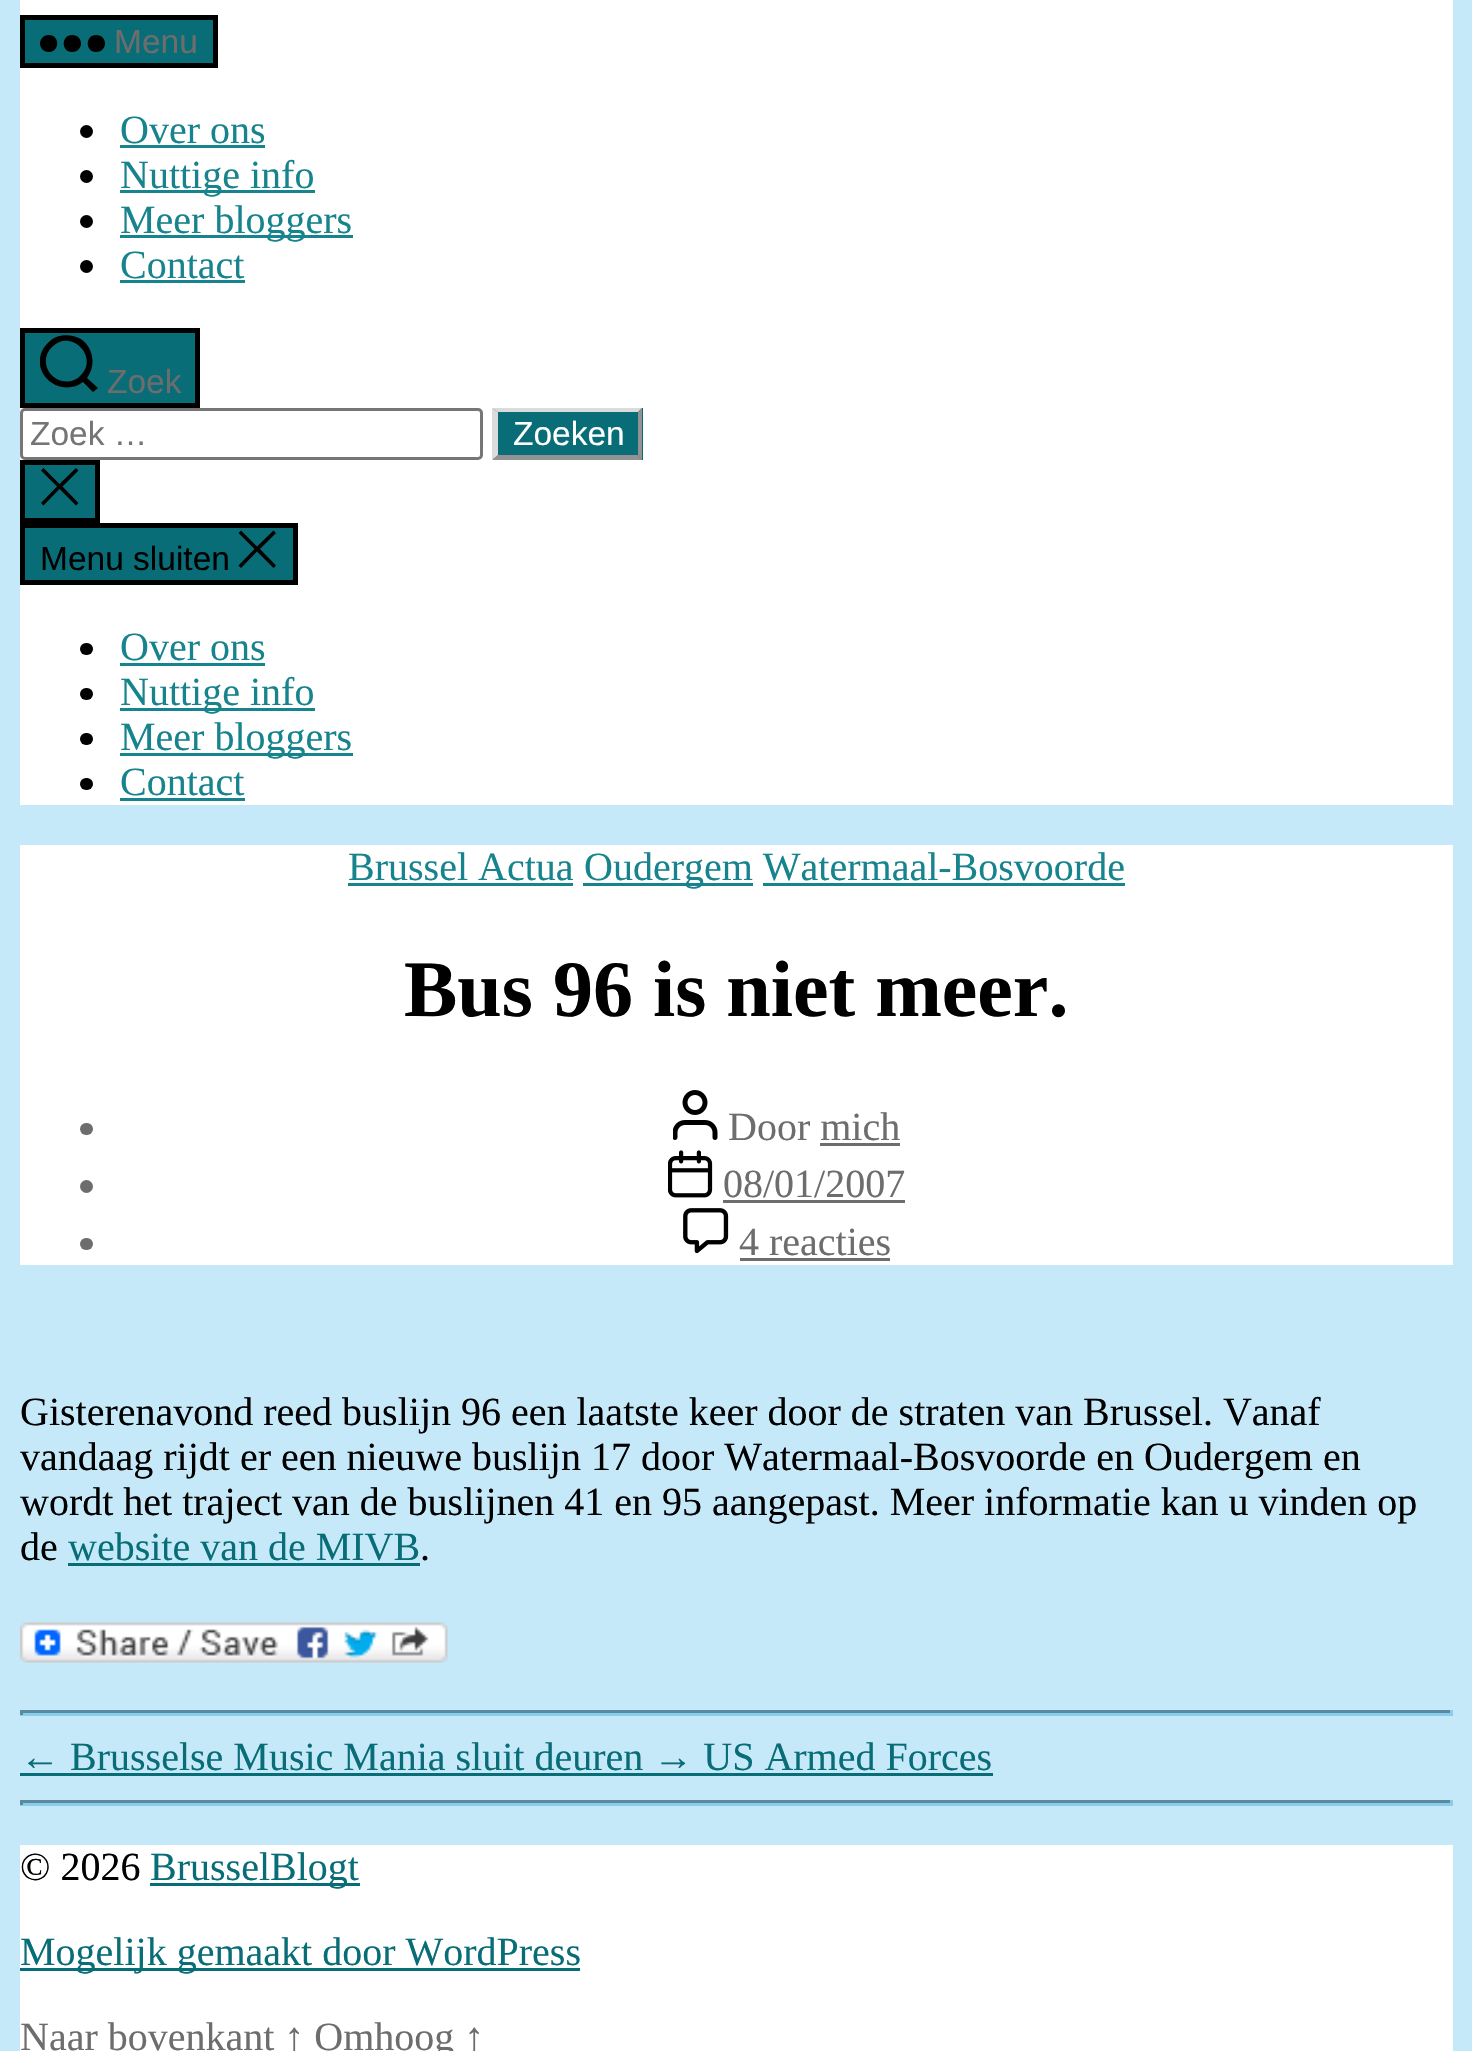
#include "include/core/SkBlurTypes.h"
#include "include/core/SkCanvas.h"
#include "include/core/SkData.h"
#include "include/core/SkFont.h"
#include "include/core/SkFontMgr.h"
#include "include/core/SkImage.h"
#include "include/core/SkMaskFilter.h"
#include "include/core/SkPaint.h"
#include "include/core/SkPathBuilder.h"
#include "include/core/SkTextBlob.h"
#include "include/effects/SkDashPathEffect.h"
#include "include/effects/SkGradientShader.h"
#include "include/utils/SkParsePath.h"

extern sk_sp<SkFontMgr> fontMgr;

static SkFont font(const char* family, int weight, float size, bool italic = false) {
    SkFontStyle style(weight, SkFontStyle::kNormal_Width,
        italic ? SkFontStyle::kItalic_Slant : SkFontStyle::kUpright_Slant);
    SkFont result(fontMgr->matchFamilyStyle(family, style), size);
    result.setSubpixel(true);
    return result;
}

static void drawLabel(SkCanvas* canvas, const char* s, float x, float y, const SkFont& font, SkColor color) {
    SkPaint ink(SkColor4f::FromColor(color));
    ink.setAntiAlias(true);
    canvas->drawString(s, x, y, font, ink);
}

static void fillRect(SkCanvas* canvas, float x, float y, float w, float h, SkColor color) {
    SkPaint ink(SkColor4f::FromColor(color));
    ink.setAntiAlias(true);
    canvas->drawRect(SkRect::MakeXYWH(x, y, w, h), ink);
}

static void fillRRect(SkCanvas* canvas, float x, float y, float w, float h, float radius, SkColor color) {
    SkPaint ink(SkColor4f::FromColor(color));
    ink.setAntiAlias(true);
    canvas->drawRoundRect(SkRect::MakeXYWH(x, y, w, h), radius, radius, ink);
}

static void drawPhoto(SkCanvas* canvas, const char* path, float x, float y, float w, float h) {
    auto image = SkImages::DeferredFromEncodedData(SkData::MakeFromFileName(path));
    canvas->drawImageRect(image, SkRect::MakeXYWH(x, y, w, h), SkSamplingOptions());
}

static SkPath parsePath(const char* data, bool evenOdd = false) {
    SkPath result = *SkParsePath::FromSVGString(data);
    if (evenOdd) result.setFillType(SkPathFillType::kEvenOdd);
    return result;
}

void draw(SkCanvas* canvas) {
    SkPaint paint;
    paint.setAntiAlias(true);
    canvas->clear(0xFFC6E9FA);
    fillRect(canvas, 20, 0, 1433, 805, 0xFFFFFFFF);
    paint.setColor(0xFF086D76);
    canvas->drawRect(SkRect::MakeXYWH(22.5f, 17.5f, 193, 48), paint);
    paint.setStroke(true);
    paint.setStrokeWidth(5);
    paint.setColor(0xFF000000);
    canvas->drawRect(SkRect::MakeXYWH(22.5f, 17.5f, 193, 48), paint);
    SkFont font1 = font("Liberation Sans", 400, 33.5f);
    drawLabel(canvas, "Menu", 114, 53, font1, 0xFF6D6D6D);
    paint.setStroke(false);
    canvas->drawPath(parsePath("M49 52C37 52 37 35 49 35C60 35 60 52 49 52ZM72 52C61 52 61 35 72 35C84 35 84 52 72 52ZM96 52C85 52 85 35 96 35C108 35 108 52 96 52Z", true), paint);
    canvas->drawCircle(86.5f, 131.5f, 6.5f, paint);
    SkFont font2 = font("Liberation Serif", 400, 40);
    drawLabel(canvas, "Over ons", 120, 143, font2, 0xFF16838D);
    fillRect(canvas, 120, 145, 145, 3, 0xFF16838D);
    canvas->drawCircle(86.5f, 176.5f, 6.5f, paint);
    fillRect(canvas, 120, 190, 195, 3, 0xFF16838D);
    drawLabel(canvas, "Nuttige info", 120, 188, font2, 0xFF16838D);
    canvas->drawCircle(86.5f, 221.5f, 6.5f, paint);
    fillRect(canvas, 120, 235, 233, 3, 0xFF16838D);
    drawLabel(canvas, "Meer bloggers", 120, 233, font2, 0xFF16838D);
    canvas->drawCircle(86.5f, 266.5f, 6.5f, paint);
    drawLabel(canvas, "Contact", 120, 278, font2, 0xFF16838D);
    fillRect(canvas, 120, 280, 125, 3, 0xFF16838D);
    paint.setColor(0xFF086D76);
    canvas->drawRect(SkRect::MakeXYWH(22.5f, 330.5f, 175, 75), paint);
    paint.setStroke(true);
    paint.setColor(0xFF000000);
    canvas->drawRect(SkRect::MakeXYWH(22.5f, 330.5f, 175, 75), paint);
    drawLabel(canvas, "Zoek", 107, 393, font1, 0xFF6D6D6D);
    canvas->save();
    canvas->clipRect(SkRect::MakeXYWH(40, 335, 58, 58));
    paint.setStroke(false);
    canvas->drawPath(parsePath("M87 378L98 388L93 392L83 382C62 398 31 376 42 351C45 345 50 340 56 337C64 334 74 335 81 339C94 348 96 366 87 378ZM81 375C99 357 71 328 52 347C36 363 54 388 74 380C77 379 79 377 81 375Z"), paint);
    canvas->restore();
    paint.setStroke(true);
    paint.setStrokeWidth(3);
    paint.setColor(0xFF767676);
    canvas->drawRoundRect(SkRect::MakeXYWH(21.5f, 409.5f, 460, 49), 3.5f, 3.5f, paint);
    drawLabel(canvas, "Zoek …", 30, 445, font1, 0xFF757575);
    fillRect(canvas, 493, 408, 150, 52, 0xFF086D76);
    paint.setStroke(false);
    paint.setColor(0xFFDBDBDB);
    canvas->drawPath(parsePath("M492 408H642L638 412H498Z"), paint);
    paint.setColor(0xFF929292);
    canvas->drawPath(parsePath("M642 408V460L638 455V412Z"), paint);
    canvas->drawPath(parsePath("M642 460H492L498 455H638Z"), paint);
    paint.setColor(0xFFDBDBDB);
    canvas->drawPath(parsePath("M492 460V408L498 412V455Z"), paint);
    drawLabel(canvas, "Zoeken", 513, 445, font1, 0xFFFFFFFF);
    paint.setColor(0xFF086D76);
    canvas->drawRect(SkRect::MakeXYWH(22.5f, 462.5f, 75, 58), paint);
    paint.setStroke(true);
    paint.setStrokeWidth(5);
    paint.setColor(0xFF000000);
    canvas->drawRect(SkRect::MakeXYWH(22.5f, 462.5f, 75, 58), paint);
    paint.setStroke(false);
    canvas->drawPath(parsePath("M57 486.5L41 470.5L43.5 468L59.5 484L76 468L78.5 470.5L62.5 486.5L78.5 503L76 505.5L59.5 489L43.5 505.5L41 503Z", true), paint);
    paint.setColor(0xFF086D76);
    canvas->drawRect(SkRect::MakeXYWH(22.5f, 525.5f, 273, 57), paint);
    paint.setStroke(true);
    paint.setColor(0xFF000000);
    canvas->drawRect(SkRect::MakeXYWH(22.5f, 525.5f, 273, 57), paint);
    drawLabel(canvas, "Menu sluiten", 40, 570, font1, 0xFF000000);
    paint.setStroke(false);
    canvas->drawPath(parsePath("M254.5 549L238.5 533L241 530.5L257 546.5L273.5 530.5L276 533L260 549L276 565.5L273.5 568L257 551.5L241 568L238.5 565.5Z", true), paint);
    fillRRect(canvas, 80, 643, 13, 12, 6, 0xFF000000);
    drawLabel(canvas, "Over ons", 120, 660, font2, 0xFF16838D);
    fillRect(canvas, 120, 663, 145, 3, 0xFF16838D);
    fillRRect(canvas, 80, 688, 13, 12, 6, 0xFF000000);
    fillRect(canvas, 120, 708, 195, 3, 0xFF16838D);
    drawLabel(canvas, "Nuttige info", 120, 705, font2, 0xFF16838D);
    fillRRect(canvas, 80, 733, 13, 12, 6, 0xFF000000);
    fillRect(canvas, 120, 753, 233, 3, 0xFF16838D);
    drawLabel(canvas, "Meer bloggers", 120, 750, font2, 0xFF16838D);
    fillRRect(canvas, 80, 778, 13, 12, 6, 0xFF000000);
    drawLabel(canvas, "Contact", 120, 795, font2, 0xFF16838D);
    fillRect(canvas, 120, 798, 125, 3, 0xFF16838D);
    fillRect(canvas, 20, 845, 1433, 420, 0xFFFFFFFF);
    drawLabel(canvas, "Brussel Actua", 348, 880, font2, 0xFF16838D);
    fillRect(canvas, 348, 883, 225, 3, 0xFF16838D);
    fillRect(canvas, 583, 883, 170, 3, 0xFF16838D);
    drawLabel(canvas, "Oudergem Watermaal-Bosvoorde", 584, 880, font2, 0xFF16838D);
    fillRect(canvas, 763, 883, 362, 3, 0xFF16838D);
    SkFont font3 = font("Liberation Serif", 700, 80);
    drawLabel(canvas, "Bus 96 is niet meer.", 404, 1016, font3, 0xFF000000);
    fillRRect(canvas, 80, 1123, 13, 12, 6, 0xFF6D6D6D);
    drawPhoto(canvas, "assets/img1.png", 673, 1090, 45, 50);
    drawLabel(canvas, "Door mich", 728, 1140, font2, 0xFF6D6D6D);
    fillRect(canvas, 820, 1143, 80, 3, 0xFF6D6D6D);
    paint.setColor(0xFF6D6D6D);
    canvas->drawCircle(86.5f, 1186.5f, 6.5f, paint);
    drawPhoto(canvas, "assets/img2.png", 668, 1150, 45, 48);
    drawLabel(canvas, "08/01/2007", 723, 1197, font2, 0xFF6D6D6D);
    fillRect(canvas, 723, 1200, 182, 3, 0xFF6D6D6D);
    fillRRect(canvas, 80, 1238, 13, 12, 6, 0xFF6D6D6D);
    drawPhoto(canvas, "assets/img3.png", 683, 1208, 46, 46);
    drawLabel(canvas, "4 reacties", 739, 1255, font2, 0xFF6D6D6D);
    fillRect(canvas, 740, 1258, 150, 3, 0xFF6D6D6D);
    drawLabel(canvas, "Gisterenavond reed buslijn 96 een laatste keer door de straten van Brussel. Vanaf", 20, 1425, font2, 0xFF000000);
    drawLabel(canvas, "vandaag rijdt er een nieuwe buslijn 17 door Watermaal-Bosvoorde en Oudergem en", 20, 1470, font2, 0xFF000000);
    drawLabel(canvas, "wordt het traject van de buslijnen 41 en 95 aangepast. Meer informatie kan u vinden op", 20, 1515, font2, 0xFF000000);
    drawLabel(canvas, "de", 20, 1560, font2, 0xFF000000);
    drawLabel(canvas, "website van de MIVB", 68, 1560, font2, 0xFF086D76);
    fillRect(canvas, 68, 1563, 352, 3, 0xFF086D76);
    drawLabel(canvas, ".", 420, 1560, font2, 0xFF000000);
    drawPhoto(canvas, "assets/img4.png", 20, 1622, 428, 41);
    fillRect(canvas, 20, 1710, 1433, 3, 0xFF5B899D);
    fillRect(canvas, 1450, 1710, 3, 5, 0xFF88CDEB);
    fillRect(canvas, 20, 1713, 1433, 3, 0xFF88CDEB);
    fillRect(canvas, 20, 1710, 3, 5, 0xFF5B899D);
    drawLabel(canvas, "← Brusselse Music Mania sluit deuren → US Armed Forces", 20, 1770, font2, 0xFF086D76);
    fillRect(canvas, 20, 1773, 973, 3, 0xFF086D76);
    fillRect(canvas, 20, 1800, 1433, 3, 0xFF5B899D);
    fillRect(canvas, 1450, 1800, 3, 5, 0xFF88CDEB);
    fillRect(canvas, 20, 1803, 1433, 3, 0xFF88CDEB);
    fillRect(canvas, 20, 1800, 3, 5, 0xFF5B899D);
    fillRect(canvas, 20, 1845, 1433, 206, 0xFFFFFFFF);
    drawLabel(canvas, "© 2026", 20, 1880, font2, 0xFF000000);
    fillRect(canvas, 150, 1883, 210, 3, 0xFF086D76);
    drawLabel(canvas, "BrusselBlogt", 150, 1880, font2, 0xFF086D76);
    fillRect(canvas, 20, 1968, 560, 3, 0xFF086D76);
    drawLabel(canvas, "Mogelijk gemaakt door WordPress", 20, 1965, font2, 0xFF086D76);
    drawLabel(canvas, "Naar bovenkant ↑ Omhoog ↑", 20, 2050, font2, 0xFF6D6D6D);
}
